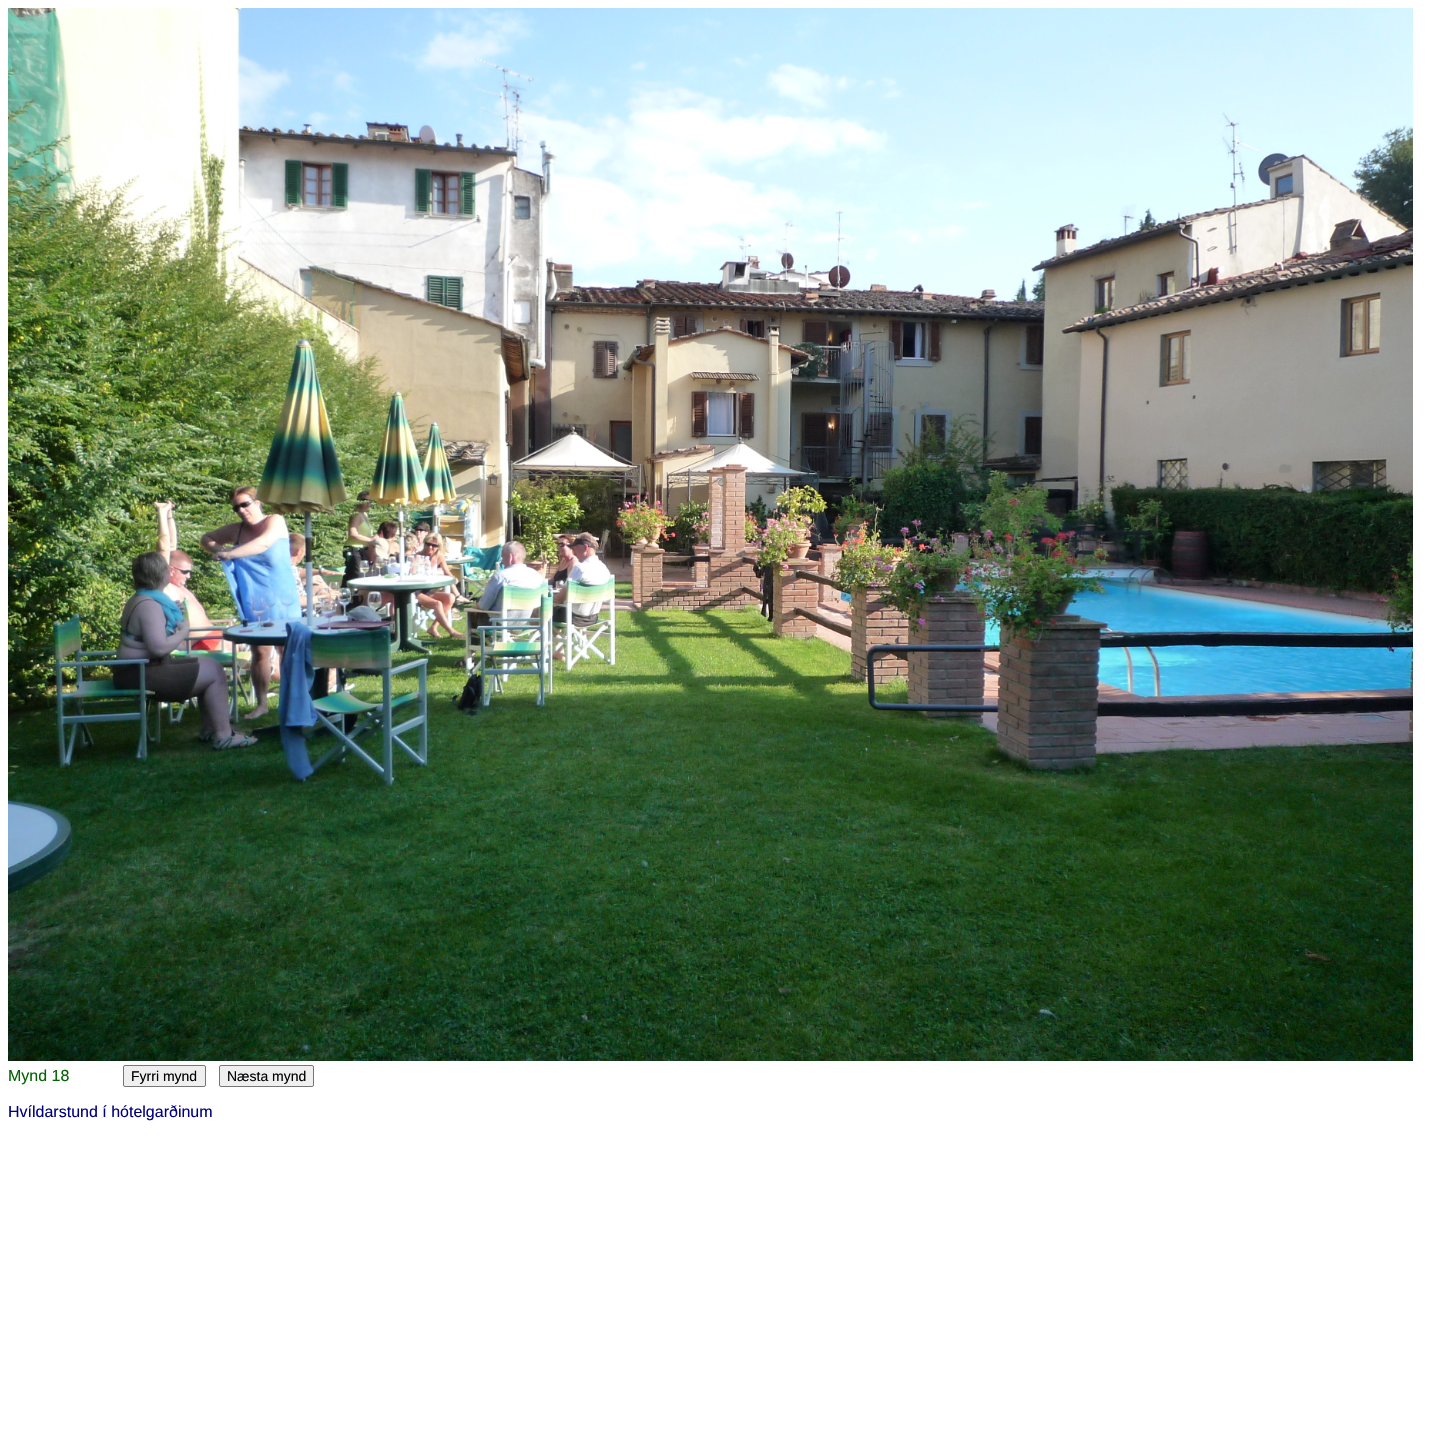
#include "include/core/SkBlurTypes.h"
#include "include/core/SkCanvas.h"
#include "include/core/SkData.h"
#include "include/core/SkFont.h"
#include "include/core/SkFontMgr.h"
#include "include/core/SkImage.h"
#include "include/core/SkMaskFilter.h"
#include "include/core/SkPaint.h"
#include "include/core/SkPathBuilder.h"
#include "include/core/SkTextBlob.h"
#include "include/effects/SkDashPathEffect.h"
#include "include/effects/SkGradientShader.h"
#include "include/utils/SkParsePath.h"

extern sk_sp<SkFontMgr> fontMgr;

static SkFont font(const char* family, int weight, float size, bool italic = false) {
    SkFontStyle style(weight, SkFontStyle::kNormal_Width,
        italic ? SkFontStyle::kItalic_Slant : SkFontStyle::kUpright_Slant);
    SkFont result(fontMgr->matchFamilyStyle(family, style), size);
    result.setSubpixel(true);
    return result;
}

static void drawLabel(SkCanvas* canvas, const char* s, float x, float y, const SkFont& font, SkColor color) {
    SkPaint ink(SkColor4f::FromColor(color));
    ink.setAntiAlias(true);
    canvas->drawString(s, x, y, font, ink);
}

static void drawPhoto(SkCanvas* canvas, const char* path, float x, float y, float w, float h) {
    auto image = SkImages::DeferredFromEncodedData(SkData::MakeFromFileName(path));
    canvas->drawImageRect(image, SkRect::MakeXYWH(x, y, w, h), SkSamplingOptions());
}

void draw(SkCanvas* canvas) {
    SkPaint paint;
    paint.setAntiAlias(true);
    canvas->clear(0xFFFFFFFF);
    drawPhoto(canvas, "assets/img1.png", 8, 8, 1405, 1053);
    SkFont font1 = font("Liberation Sans", 400, 16);
    drawLabel(canvas, "Mynd 18", 8, 1081, font1, 0xFF006400);
    paint.setColor(0xFFEFEFEF);
    canvas->drawRoundRect(SkRect::MakeXYWH(123.5f, 1065.5f, 82, 21), 1.5f, 1.5f, paint);
    paint.setStroke(true);
    paint.setStrokeWidth(1);
    paint.setColor(0xFF767676);
    canvas->drawRoundRect(SkRect::MakeXYWH(123.5f, 1065.5f, 82, 21), 1.5f, 1.5f, paint);
    SkFont font2 = font("Liberation Sans", 400, 14);
    drawLabel(canvas, "Fyrri mynd", 131, 1081, font2, 0xFF000000);
    paint.setStroke(false);
    paint.setColor(0xFFEFEFEF);
    canvas->drawRoundRect(SkRect::MakeXYWH(219.5f, 1065.5f, 94, 21), 1.5f, 1.5f, paint);
    paint.setStroke(true);
    paint.setColor(0xFF767676);
    canvas->drawRoundRect(SkRect::MakeXYWH(219.5f, 1065.5f, 94, 21), 1.5f, 1.5f, paint);
    drawLabel(canvas, "Næsta mynd", 227, 1081, font2, 0xFF000000);
    drawLabel(canvas, "Hvíldarstund í hótelgarðinum", 8, 1117, font1, 0xFF000080);
}
